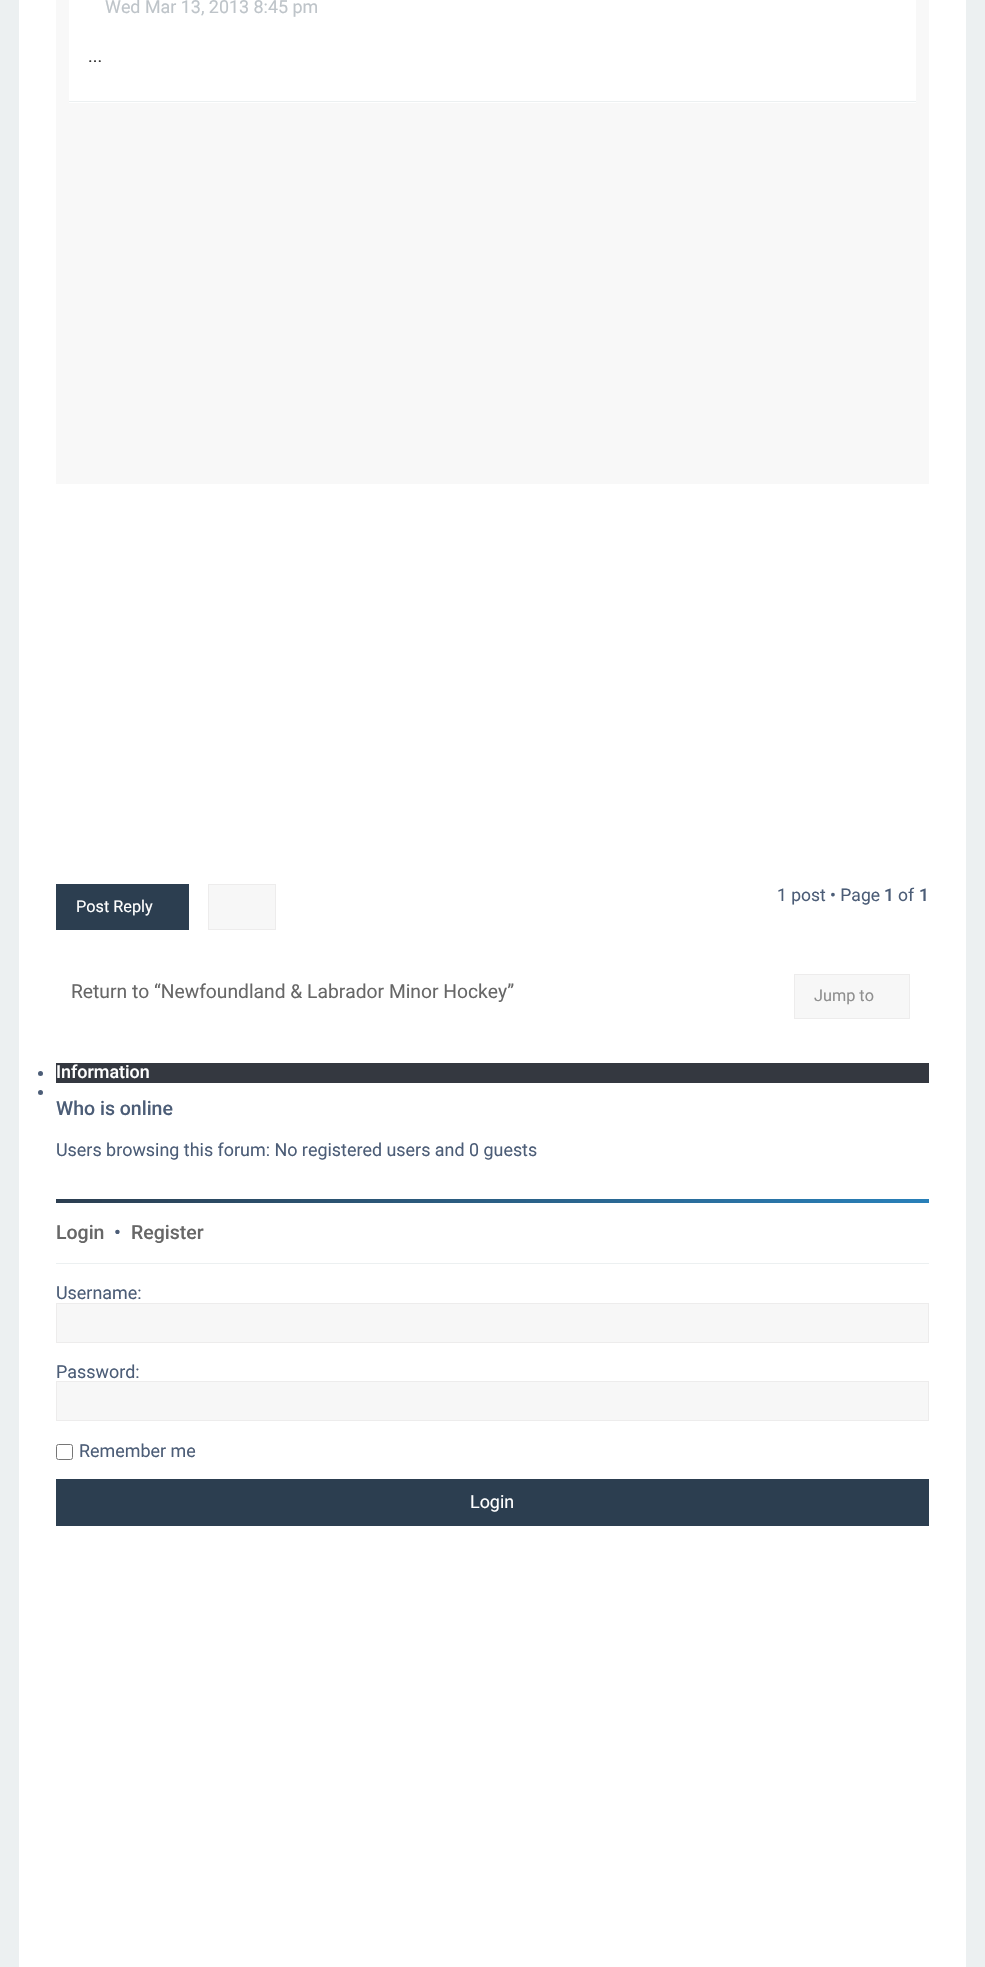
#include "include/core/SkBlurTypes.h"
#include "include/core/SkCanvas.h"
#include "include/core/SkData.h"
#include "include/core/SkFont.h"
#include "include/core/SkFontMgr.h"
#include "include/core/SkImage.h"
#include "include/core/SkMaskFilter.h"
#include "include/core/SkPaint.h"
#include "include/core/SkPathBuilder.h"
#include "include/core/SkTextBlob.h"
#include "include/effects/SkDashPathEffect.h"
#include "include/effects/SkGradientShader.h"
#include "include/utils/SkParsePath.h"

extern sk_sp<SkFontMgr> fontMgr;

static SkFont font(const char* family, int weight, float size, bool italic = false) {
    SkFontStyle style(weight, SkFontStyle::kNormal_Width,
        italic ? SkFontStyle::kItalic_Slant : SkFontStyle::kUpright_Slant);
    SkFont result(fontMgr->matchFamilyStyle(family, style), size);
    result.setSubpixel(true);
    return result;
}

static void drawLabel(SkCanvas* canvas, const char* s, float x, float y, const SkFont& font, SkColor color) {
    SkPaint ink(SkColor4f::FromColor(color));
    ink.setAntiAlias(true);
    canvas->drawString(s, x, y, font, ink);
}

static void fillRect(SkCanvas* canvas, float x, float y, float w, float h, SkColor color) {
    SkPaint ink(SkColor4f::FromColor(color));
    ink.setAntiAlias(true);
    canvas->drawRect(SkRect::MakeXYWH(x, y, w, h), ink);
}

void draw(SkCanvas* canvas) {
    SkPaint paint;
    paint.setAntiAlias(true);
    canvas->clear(0xFFECF0F1);
    fillRect(canvas, 19, 0, 947, 1967, 0xFFFFFFFF);
    fillRect(canvas, 56, 0, 873, 484, 0xFFF8F8F8);
    fillRect(canvas, 69, 0, 847, 103, 0xFFFFFFFF);
    fillRect(canvas, 69, 101, 847, 1, 0xFFECF0F1);
    SkFont font1 = font("Roboto", 400, 17.9f);
    drawLabel(canvas, "Wed Mar 13, 2013 8:45 pm", 105, 13, font1, 0xFFBEC4C9);
    drawLabel(canvas, "...", 88, 62, font1, 0xFF333333);
    paint.setColor(0xFFF7F7F7);
    canvas->drawRect(SkRect::MakeXYWH(208.5f, 884.5f, 67, 45), paint);
    paint.setStroke(true);
    paint.setStrokeWidth(1);
    paint.setColor(0xFFEDECEC);
    canvas->drawRect(SkRect::MakeXYWH(208.5f, 884.5f, 67, 45), paint);
    SkFont font2 = font("Roboto", 400, 17.5f);
    drawLabel(canvas, "1 post • Page", 777, 901, font2, 0xFF4C5D77);
    SkFont font3 = font("Roboto", 500, 17.5f);
    drawLabel(canvas, "1", 884, 901, font3, 0xFF4C5D77);
    drawLabel(canvas, "of", 898, 901, font2, 0xFF4C5D77);
    drawLabel(canvas, "1", 919, 901, font3, 0xFF4C5D77);
    fillRect(canvas, 56, 884, 133, 46, 0xFF2C3E50);
    SkFont font4 = font("Roboto", 400, 16.25f);
    drawLabel(canvas, "Post Reply", 76, 912, font4, 0xFFFFFFFF);
    SkFont font5 = font("Roboto", 400, 19.25f);
    drawLabel(canvas, "Return to “Newfoundland & Labrador Minor Hockey”", 71, 998, font5, 0xFF676767);
    paint.setStroke(false);
    paint.setColor(0xFFF7F7F7);
    canvas->drawRect(SkRect::MakeXYWH(794.5f, 974.5f, 115, 44), paint);
    paint.setStroke(true);
    paint.setColor(0xFFEDECEC);
    canvas->drawRect(SkRect::MakeXYWH(794.5f, 974.5f, 115, 44), paint);
    drawLabel(canvas, "Jump to", 814, 1001, font4, 0xFF8F8F8F);
    fillRect(canvas, 56, 1063, 873, 20, 0xFF343840);
    paint.setStroke(false);
    paint.setColor(0xFF4C5D77);
    canvas->drawCircle(40.5f, 1073.5f, 2.5f, paint);
    SkFont font6 = font("Roboto", 500, 17.9f);
    drawLabel(canvas, "Information", 56, 1078, font6, 0xFFFFFFFF);
    canvas->drawCircle(40.5f, 1092.5f, 2.5f, paint);
    SkFont font7 = font("Roboto", 500, 19.5f);
    drawLabel(canvas, "Who is online", 56, 1115, font7, 0xFF4C5D77);
    drawLabel(canvas, "Users browsing this forum: No registered users and 0 guests", 56, 1156, font1, 0xFF4C5D77);
    {
        const SkColor colors[] = {0xFF2C3E50, 0xFF2980B9};
        const float stops[] = {0, 1};
        const SkPoint ends[] = {{56, 1201}, {929, 1201}};
        paint.setShader(SkGradientShader::MakeLinear(ends, colors, stops, 2, SkTileMode::kClamp));
        paint.setAlpha(255);
    }
    canvas->drawRect(SkRect::MakeXYWH(56, 1199, 873, 4), paint);
    drawLabel(canvas, "Login", 56, 1239, font7, 0xFF676767);
    drawLabel(canvas, "•", 114, 1239, font7, 0xFF4C5D77);
    drawLabel(canvas, "Register", 131, 1239, font7, 0xFF676767);
    fillRect(canvas, 56, 1263, 873, 1, 0xFFECF0F1);
    drawLabel(canvas, "Username:", 56, 1299, font1, 0xFF4C5D77);
    paint.setShader(nullptr);
    paint.setColor(0xFFF7F7F7);
    canvas->drawRect(SkRect::MakeXYWH(56.5f, 1303.5f, 872, 39), paint);
    paint.setStroke(true);
    paint.setColor(0xFFEDECEC);
    canvas->drawRect(SkRect::MakeXYWH(56.5f, 1303.5f, 872, 39), paint);
    drawLabel(canvas, "Password:", 56, 1378, font1, 0xFF4C5D77);
    paint.setStroke(false);
    paint.setColor(0xFFF7F7F7);
    canvas->drawRect(SkRect::MakeXYWH(56.5f, 1381.5f, 872, 39), paint);
    paint.setStroke(true);
    paint.setColor(0xFFEDECEC);
    canvas->drawRect(SkRect::MakeXYWH(56.5f, 1381.5f, 872, 39), paint);
    paint.setColor(0xFF767676);
    canvas->drawRoundRect(SkRect::MakeXYWH(56.5f, 1444.5f, 16, 15), 2, 2, paint);
    drawLabel(canvas, "Remember me", 79, 1457, font1, 0xFF4C5D77);
    fillRect(canvas, 56, 1479, 873, 47, 0xFF2C3E50);
    drawLabel(canvas, "Login", 470, 1508, font1, 0xFFFFFFFF);
}
